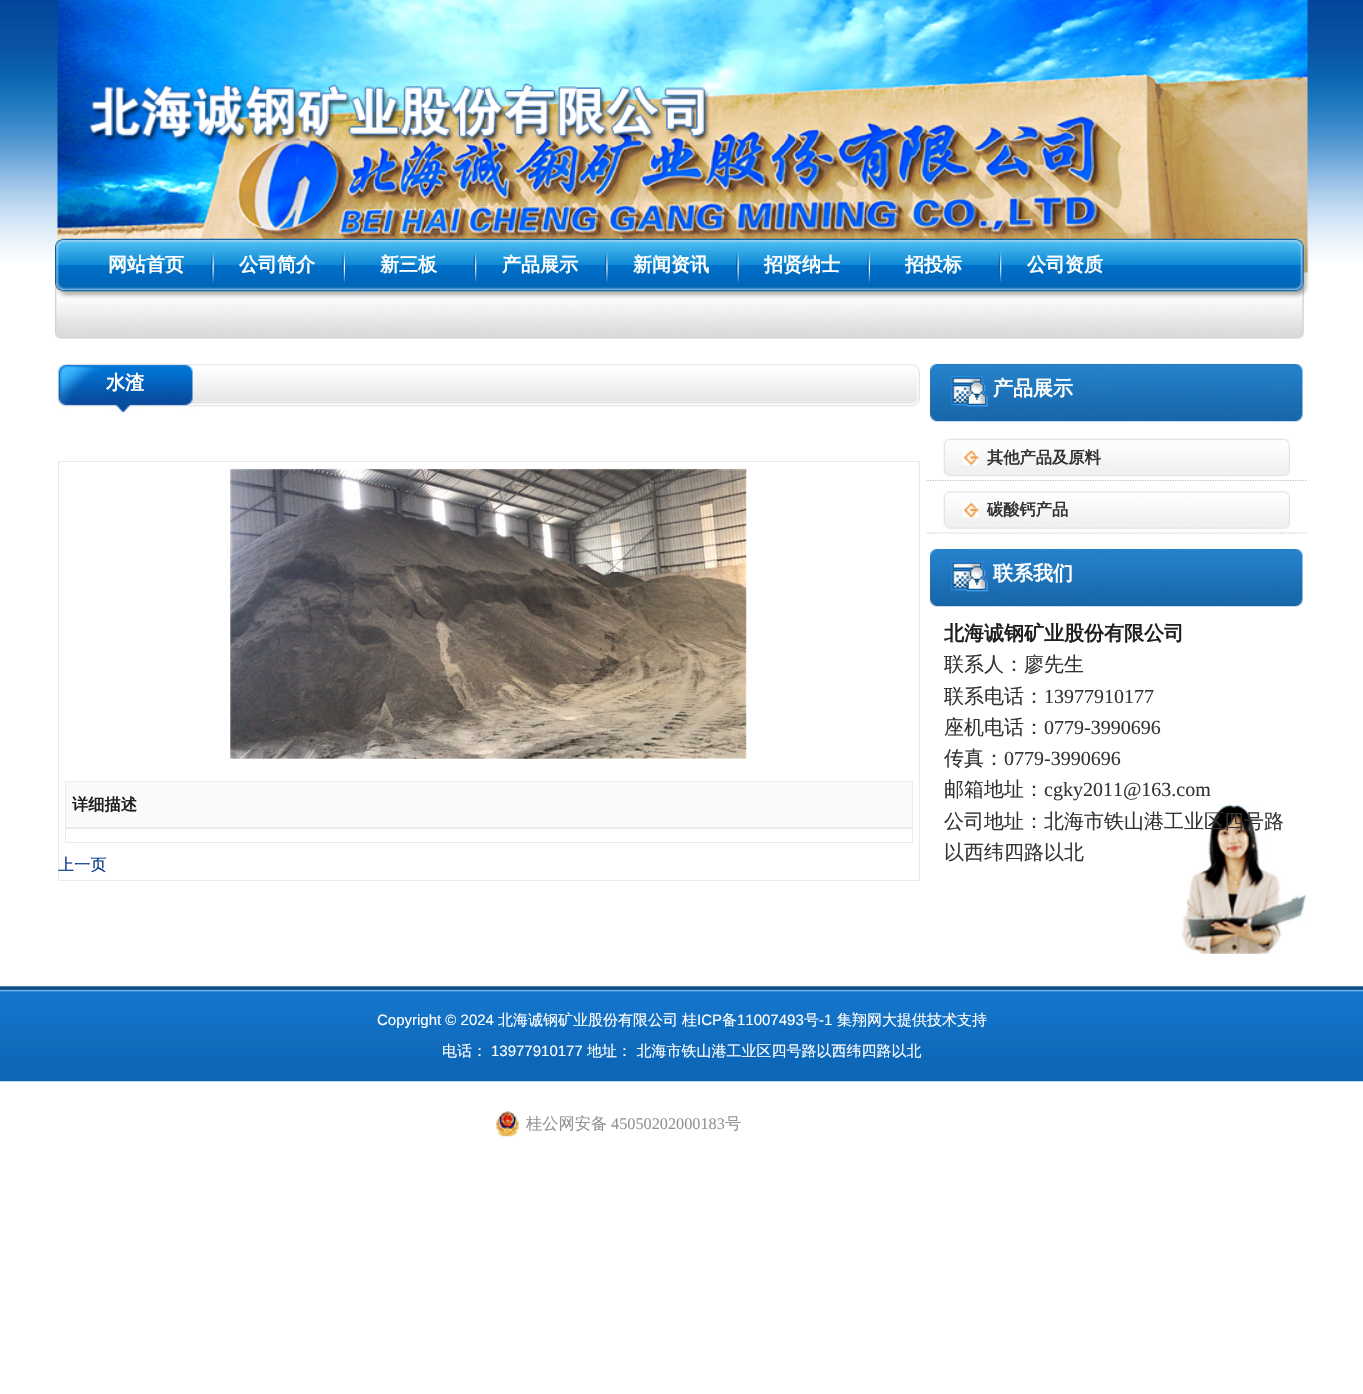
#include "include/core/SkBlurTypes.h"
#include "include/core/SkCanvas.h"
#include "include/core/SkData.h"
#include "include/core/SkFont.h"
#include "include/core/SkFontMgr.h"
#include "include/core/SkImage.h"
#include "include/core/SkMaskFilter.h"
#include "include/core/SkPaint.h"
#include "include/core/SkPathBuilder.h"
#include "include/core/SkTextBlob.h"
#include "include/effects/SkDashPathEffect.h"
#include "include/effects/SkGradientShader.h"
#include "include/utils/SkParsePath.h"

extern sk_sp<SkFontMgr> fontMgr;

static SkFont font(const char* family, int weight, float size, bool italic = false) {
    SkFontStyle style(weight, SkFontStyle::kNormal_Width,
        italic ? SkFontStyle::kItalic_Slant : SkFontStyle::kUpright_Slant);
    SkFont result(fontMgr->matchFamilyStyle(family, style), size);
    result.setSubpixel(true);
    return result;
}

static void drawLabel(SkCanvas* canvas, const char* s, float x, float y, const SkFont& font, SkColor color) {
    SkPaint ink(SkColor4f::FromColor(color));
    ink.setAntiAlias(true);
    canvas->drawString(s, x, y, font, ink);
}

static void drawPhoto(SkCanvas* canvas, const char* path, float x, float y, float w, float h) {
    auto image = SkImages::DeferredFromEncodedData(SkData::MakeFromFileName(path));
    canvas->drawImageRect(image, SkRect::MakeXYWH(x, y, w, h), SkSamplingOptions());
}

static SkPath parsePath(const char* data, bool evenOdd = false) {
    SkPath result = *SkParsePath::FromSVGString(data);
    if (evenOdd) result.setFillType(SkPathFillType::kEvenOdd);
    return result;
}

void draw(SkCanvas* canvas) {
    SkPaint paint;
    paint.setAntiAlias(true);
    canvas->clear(0xFFFFFFFF);
    drawPhoto(canvas, "assets/img1.png", 0, 0, 1363, 262);
    drawPhoto(canvas, "assets/img2.png", 57, 0, 1251, 273);
    drawPhoto(canvas, "assets/img3.png", 89, 83, 621, 61);
    drawPhoto(canvas, "assets/img4.png", 55, 238, 1254, 101);
    SkFont font1 = font("WenQuanYi Zen Hei", 700, 19);
    drawLabel(canvas, "网站首页", 108, 271, font1, 0xFFFFFFFF);
    drawPhoto(canvas, "assets/img5.png", 211, 238, 3, 45);
    drawLabel(canvas, "公司简介", 239, 271, font1, 0xFFFFFFFF);
    drawPhoto(canvas, "assets/img6.png", 342, 238, 3, 45);
    drawLabel(canvas, "新三板", 380, 271, font1, 0xFFFFFFFF);
    drawPhoto(canvas, "assets/img7.png", 473, 238, 4, 45);
    drawLabel(canvas, "产品展示", 502, 271, font1, 0xFFFFFFFF);
    drawPhoto(canvas, "assets/img8.png", 605, 238, 3, 45);
    drawLabel(canvas, "新闻资讯", 633, 271, font1, 0xFFFFFFFF);
    drawPhoto(canvas, "assets/img9.png", 736, 238, 3, 45);
    drawLabel(canvas, "招贤纳士", 764, 271, font1, 0xFFFFFFFF);
    drawPhoto(canvas, "assets/img10.png", 867, 238, 3, 45);
    drawLabel(canvas, "招投标", 905, 271, font1, 0xFFFFFFFF);
    drawPhoto(canvas, "assets/img11.png", 998, 238, 4, 45);
    drawLabel(canvas, "公司资质", 1027, 271, font1, 0xFFFFFFFF);
    drawPhoto(canvas, "assets/img12.png", 57, 364, 856, 43);
    drawPhoto(canvas, "assets/img13.png", 57, 364, 136, 49);
    drawLabel(canvas, "水渣", 106, 389, font1, 0xFFFFFFFF);
    drawPhoto(canvas, "assets/img14.png", 913, 364, 7, 43);
    paint.setStroke(true);
    paint.setStrokeWidth(1);
    paint.setColor(0xFFEAEAEA);
    canvas->drawRect(SkRect::MakeXYWH(58.5f, 461.5f, 861, 419), paint);
    drawPhoto(canvas, "assets/img15.png", 230, 468, 517, 291);
    paint.setStroke(false);
    paint.setColor(0xFFFAFAFA);
    canvas->drawRect(SkRect::MakeXYWH(65.5f, 781.5f, 847, 46), paint);
    paint.setStroke(true);
    paint.setColor(0xFFEAEAEA);
    canvas->drawRect(SkRect::MakeXYWH(65.5f, 781.5f, 847, 46), paint);
    SkFont font2 = font("WenQuanYi Zen Hei", 700, 16.25f);
    drawLabel(canvas, "详细描述", 72, 810, font2, 0xFF202020);
    canvas->drawRect(SkRect::MakeXYWH(65.5f, 828.5f, 847, 14), paint);
    SkFont font3 = font("WenQuanYi Zen Hei", 500, 16.25f);
    drawLabel(canvas, "上一页", 58, 870, font3, 0xFF003288);
    drawPhoto(canvas, "assets/img16.png", 930, 363, 373, 59);
    SkFont font4 = font("WenQuanYi Zen Hei", 700, 20);
    drawLabel(canvas, "产品展示", 993, 395, font4, 0xFFFFFFFF);
    canvas->save();
    canvas->clipRect(SkRect::MakeXYWH(926, 429, 382, 105));
    paint.setStrokeWidth(1.2f);
    paint.setColor(0xFFC0C0C0);
    paint.setPathEffect(SkDashPathEffect::Make({{1.25f, 1.25f}}, 0));
    canvas->drawPath(parsePath("M920 480.5H1307.5"), paint);
    paint.setPathEffect(nullptr);
    canvas->restore();
    drawPhoto(canvas, "assets/img17.png", 943, 438, 347, 39);
    drawLabel(canvas, "其他产品及原料", 987, 463, font2, 0xFF333333);
    canvas->save();
    canvas->clipRect(SkRect::MakeXYWH(926, 429, 382, 105));
    paint.setPathEffect(SkDashPathEffect::Make({{1.25f, 1.25f}}, 0));
    canvas->drawPath(parsePath("M920 533H1307.5"), paint);
    paint.setPathEffect(nullptr);
    canvas->restore();
    drawPhoto(canvas, "assets/img18.png", 943, 491, 347, 38);
    drawLabel(canvas, "碳酸钙产品", 987, 515, font2, 0xFF333333);
    drawPhoto(canvas, "assets/img19.png", 930, 548, 373, 59);
    drawLabel(canvas, "联系我们", 993, 580, font4, 0xFFFFFFFF);
    drawPhoto(canvas, "assets/img20.png", 1181, 804, 126, 150);
    drawLabel(canvas, "北海诚钢矿业股份有限公司", 944, 640, font4, 0xFF202020);
    SkFont font5 = font("WenQuanYi Zen Hei", 500, 20);
    drawLabel(canvas, "联系人：廖先生", 944, 671, font5, 0xFF333333);
    drawLabel(canvas, "联系电话：", 944, 703, font5, 0xFF333333);
    SkFont font6 = font("Liberation Serif", 400, 20);
    drawLabel(canvas, "13977910177", 1044, 703, font6, 0xFF333333);
    drawLabel(canvas, "座机电话：", 944, 734, font5, 0xFF333333);
    drawLabel(canvas, "0779-3990696", 1044, 734, font6, 0xFF333333);
    drawLabel(canvas, "传真：", 944, 765, font5, 0xFF333333);
    drawLabel(canvas, "0779-3990696", 1004, 765, font6, 0xFF333333);
    drawLabel(canvas, "邮箱地址：", 944, 796, font5, 0xFF333333);
    drawLabel(canvas, "cgky2011@163.com", 1044, 796, font6, 0xFF333333);
    drawLabel(canvas, "公司地址：北海市铁山港工业区四号路", 944, 828, font5, 0xFF333333);
    drawLabel(canvas, "以西纬四路以北", 944, 859, font5, 0xFF333333);
    drawPhoto(canvas, "assets/img21.png", 0, 986, 1363, 96);
    SkFont font7 = font("Liberation Sans", 400, 15);
    drawLabel(canvas, "Copyright © 2024", 377, 1025, font7, 0xFFFFFFFF);
    SkFont font8 = font("WenQuanYi Zen Hei", 500, 15);
    drawLabel(canvas, "北海诚钢矿业股份有限公司", 498, 1025, font8, 0xFFFFFFFF);
    drawLabel(canvas, "桂", 682, 1025, font8, 0xFFFFFFFF);
    drawLabel(canvas, "ICP", 697, 1025, font7, 0xFFFFFFFF);
    drawLabel(canvas, "备", 722, 1025, font8, 0xFFFFFFFF);
    drawLabel(canvas, "11007493", 737, 1025, font7, 0xFFFFFFFF);
    drawLabel(canvas, "号", 804, 1025, font8, 0xFFFFFFFF);
    drawLabel(canvas, "-1", 819, 1025, font7, 0xFFFFFFFF);
    drawLabel(canvas, "集翔网大提供技术支持", 837, 1025, font8, 0xFFFFFFFF);
    drawLabel(canvas, "电话：", 442, 1056, font8, 0xFFFFFFFF);
    drawLabel(canvas, "13977910177", 491, 1056, font7, 0xFFFFFFFF);
    drawLabel(canvas, "地址： 北海市铁山港工业区四号路以西纬四路以北", 587, 1056, font8, 0xFFFFFFFF);
    drawPhoto(canvas, "assets/img22.png", 496, 1111, 23, 26);
    drawLabel(canvas, "桂公网安备", 526, 1129, font3, 0xFF939393);
    SkFont font9 = font("Liberation Serif", 400, 16.25f);
    drawLabel(canvas, "45050202000183", 611, 1129, font9, 0xFF939393);
    drawLabel(canvas, "号", 725, 1129, font3, 0xFF939393);
}
